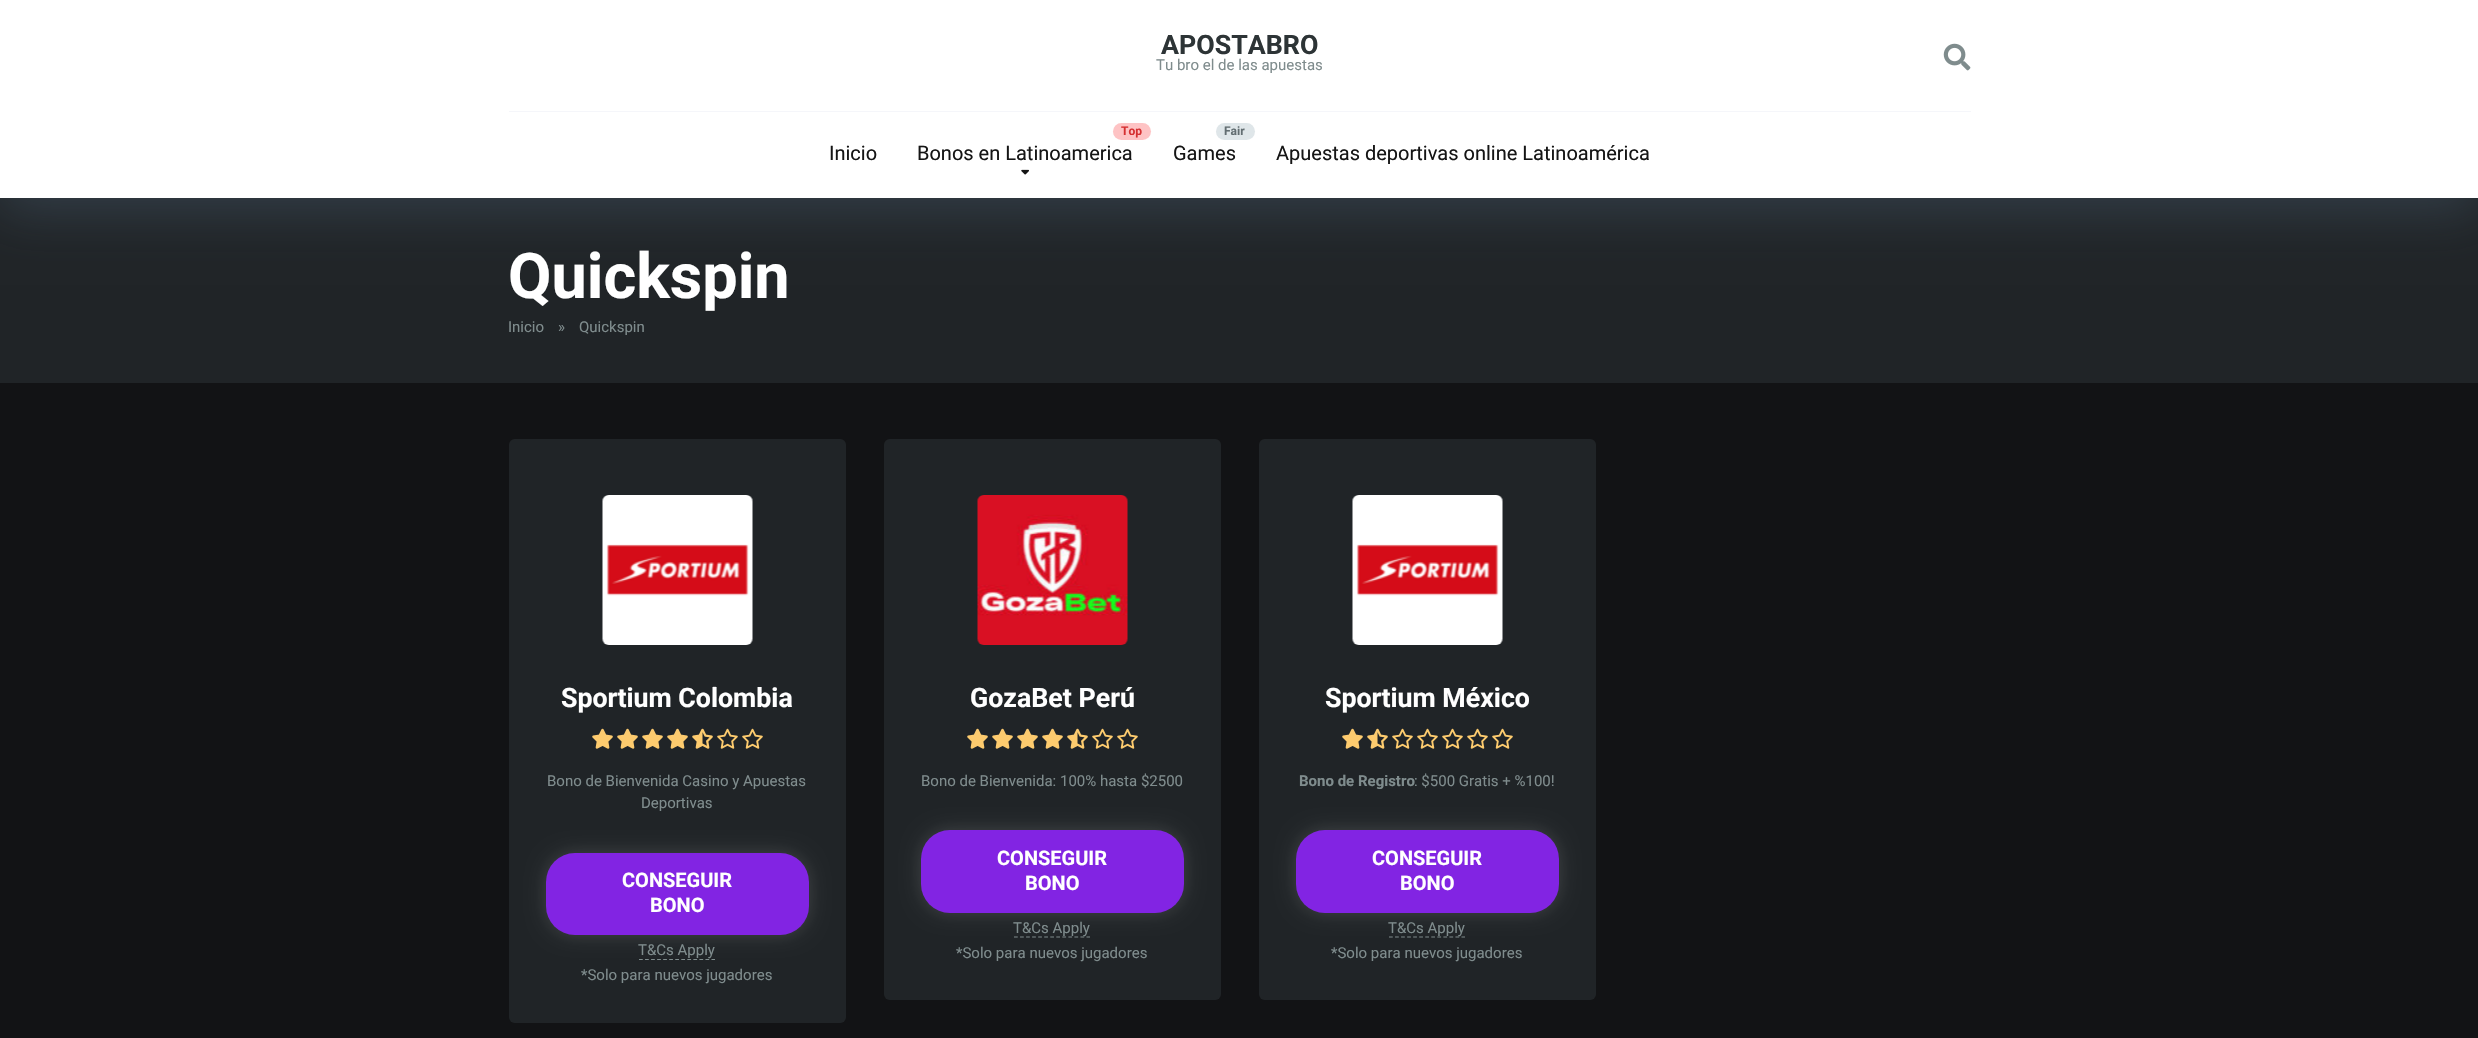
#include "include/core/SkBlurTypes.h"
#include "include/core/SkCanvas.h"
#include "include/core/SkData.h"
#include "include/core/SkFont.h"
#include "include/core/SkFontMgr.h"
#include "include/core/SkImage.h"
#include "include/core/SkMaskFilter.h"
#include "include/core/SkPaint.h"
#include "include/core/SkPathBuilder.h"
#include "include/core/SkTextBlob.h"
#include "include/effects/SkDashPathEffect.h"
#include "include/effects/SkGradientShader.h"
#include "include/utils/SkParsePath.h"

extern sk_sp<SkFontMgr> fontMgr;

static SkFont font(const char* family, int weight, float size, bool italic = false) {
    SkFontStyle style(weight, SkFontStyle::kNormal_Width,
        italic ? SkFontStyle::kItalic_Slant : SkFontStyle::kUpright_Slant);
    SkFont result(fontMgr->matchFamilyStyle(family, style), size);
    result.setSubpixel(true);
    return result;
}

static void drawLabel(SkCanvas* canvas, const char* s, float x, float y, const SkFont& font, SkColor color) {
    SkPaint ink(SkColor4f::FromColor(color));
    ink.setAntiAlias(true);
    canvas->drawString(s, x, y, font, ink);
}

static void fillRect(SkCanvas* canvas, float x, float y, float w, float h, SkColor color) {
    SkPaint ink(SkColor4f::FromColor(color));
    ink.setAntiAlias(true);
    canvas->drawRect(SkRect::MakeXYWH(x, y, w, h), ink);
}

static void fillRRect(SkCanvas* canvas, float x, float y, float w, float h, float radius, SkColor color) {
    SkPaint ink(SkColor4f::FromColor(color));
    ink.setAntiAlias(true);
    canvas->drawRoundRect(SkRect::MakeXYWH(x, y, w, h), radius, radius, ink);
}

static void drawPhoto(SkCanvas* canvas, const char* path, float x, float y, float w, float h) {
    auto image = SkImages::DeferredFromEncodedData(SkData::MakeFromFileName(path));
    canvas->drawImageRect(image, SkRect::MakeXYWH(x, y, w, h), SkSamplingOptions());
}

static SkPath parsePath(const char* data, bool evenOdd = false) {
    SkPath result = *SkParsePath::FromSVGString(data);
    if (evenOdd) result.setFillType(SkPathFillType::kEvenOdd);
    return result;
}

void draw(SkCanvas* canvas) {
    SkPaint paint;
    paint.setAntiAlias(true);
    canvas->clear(0xFF121315);
    fillRect(canvas, 0, 198, 2478, 185, 0xFF202427);
    paint.setColor(0x406D8DAD);
    paint.setMaskFilter(SkMaskFilter::MakeBlur(kNormal_SkBlurStyle, 25));
    canvas->drawRect(SkRect::MakeXYWH(0, 13, 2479, 197), paint);
    paint.setMaskFilter(nullptr);
    fillRect(canvas, 0, 0, 2478, 198, 0xFFFFFFFF);
    fillRect(canvas, 509, 111, 1462, 1, 0xFFF5F6FA);
    SkFont font1 = font("Roboto", 700, 26.75f);
    drawLabel(canvas, "APOSTABRO", 1161, 54, font1, 0xFF2D3436);
    SkFont font2 = font("Roboto", 400, 15);
    drawLabel(canvas, "Tu bro el de las apuestas", 1156, 70, font2, 0xFF7F8C8D);
    drawPhoto(canvas, "assets/img1.png", 1943, 43, 28, 28);
    SkFont font3 = font("Roboto", 400, 20);
    drawLabel(canvas, "Inicio", 829, 160, font3, 0xFF151515);
    fillRRect(canvas, 1113, 123, 38, 17, 8.5f, 0xFFFEC3C4);
    SkFont font4 = font("Roboto", 700, 12);
    drawLabel(canvas, "Top", 1121, 135, font4, 0xFFD63031);
    drawLabel(canvas, "Bonos en Latinoamerica", 917, 160, font3, 0xFF151515);
    drawPhoto(canvas, "assets/img2.png", 1021, 169, 8, 6);
    fillRRect(canvas, 1216, 123, 39, 17, 8.5f, 0xFFDFE6E9);
    drawLabel(canvas, "Fair", 1224, 135, font4, 0xFF636E72);
    drawLabel(canvas, "Games", 1173, 160, font3, 0xFF151515);
    drawLabel(canvas, "Apuestas deportivas online Latinoamérica", 1276, 160, font3, 0xFF151515);
    SkFont font5 = font("Roboto", 700, 63);
    drawLabel(canvas, "Quickspin", 508, 298, font5, 0xFFFFFFFF);
    drawLabel(canvas, "Inicio", 508, 332, font2, 0xFF7F8C8D);
    drawLabel(canvas, "»", 558, 332, font2, 0xFF7F8C8D);
    drawLabel(canvas, "Quickspin", 579, 332, font2, 0xFF7F8C8D);
    fillRRect(canvas, 509, 439, 337, 584, 6, 0xFF202427);
    drawPhoto(canvas, "assets/img3.png", 602, 495, 151, 150);
    drawLabel(canvas, "Sportium Colombia", 561, 707, font1, 0xFFFFFFFF);
    drawPhoto(canvas, "assets/img4.png", 592, 728, 21, 21);
    drawPhoto(canvas, "assets/img4.png", 617, 728, 21, 21);
    drawPhoto(canvas, "assets/img4.png", 642, 728, 21, 21);
    drawPhoto(canvas, "assets/img4.png", 667, 728, 21, 21);
    drawPhoto(canvas, "assets/img5.png", 692, 728, 21, 21);
    drawPhoto(canvas, "assets/img6.png", 717, 728, 21, 21);
    drawPhoto(canvas, "assets/img6.png", 742, 728, 21, 21);
    drawLabel(canvas, "Bono de Bienvenida Casino y Apuestas", 547, 786, font2, 0xFF7F8C8D);
    drawLabel(canvas, "Deportivas", 641, 808, font2, 0xFF7F8C8D);
    paint.setColor(0x26FFFFFF);
    paint.setMaskFilter(SkMaskFilter::MakeBlur(kNormal_SkBlurStyle, 9.5f));
    canvas->drawRoundRect(SkRect::MakeXYWH(546, 853, 263, 82), 29, 29, paint);
    paint.setMaskFilter(nullptr);
    fillRRect(canvas, 546, 853, 263, 82, 29, 0xFF8224E3);
    SkFont font6 = font("Roboto", 700, 20);
    drawLabel(canvas, "CONSEGUIR", 622, 887, font6, 0xFFFFFFFF);
    drawLabel(canvas, "BONO", 650, 912, font6, 0xFFFFFFFF);
    paint.setStroke(true);
    paint.setStrokeWidth(1.2f);
    paint.setColor(0xFF7F8C8D);
    paint.setPathEffect(SkDashPathEffect::Make({{3.75f, 2.29f}}, 0));
    canvas->drawPath(parsePath("M639 959.5H715"), paint);
    paint.setPathEffect(nullptr);
    drawLabel(canvas, "T&Cs Apply", 638, 955, font2, 0xFF7F8C8D);
    drawLabel(canvas, "*Solo para nuevos jugadores", 581, 980, font2, 0xFF7F8C8D);
    fillRRect(canvas, 884, 439, 337, 561, 6, 0xFF202427);
    drawPhoto(canvas, "assets/img7.png", 977, 495, 151, 150);
    drawLabel(canvas, "GozaBet Perú", 970, 707, font1, 0xFFFFFFFF);
    drawPhoto(canvas, "assets/img4.png", 967, 728, 21, 21);
    drawPhoto(canvas, "assets/img4.png", 992, 728, 21, 21);
    drawPhoto(canvas, "assets/img4.png", 1017, 728, 21, 21);
    drawPhoto(canvas, "assets/img4.png", 1042, 728, 21, 21);
    drawPhoto(canvas, "assets/img5.png", 1067, 728, 21, 21);
    drawPhoto(canvas, "assets/img6.png", 1092, 728, 21, 21);
    drawPhoto(canvas, "assets/img6.png", 1117, 728, 21, 21);
    drawLabel(canvas, "Bono de Bienvenida: 100% hasta $2500", 921, 786, font2, 0xFF7F8C8D);
    paint.setStroke(false);
    paint.setColor(0x26FFFFFF);
    paint.setMaskFilter(SkMaskFilter::MakeBlur(kNormal_SkBlurStyle, 9.5f));
    canvas->drawRoundRect(SkRect::MakeXYWH(921, 830, 263, 83), 29, 29, paint);
    paint.setMaskFilter(nullptr);
    fillRRect(canvas, 921, 830, 263, 83, 29, 0xFF8224E3);
    drawLabel(canvas, "CONSEGUIR", 997, 865, font6, 0xFFFFFFFF);
    drawLabel(canvas, "BONO", 1025, 890, font6, 0xFFFFFFFF);
    paint.setStroke(true);
    paint.setColor(0xFF7F8C8D);
    paint.setPathEffect(SkDashPathEffect::Make({{3.75f, 2.29f}}, 0));
    canvas->drawPath(parsePath("M1014 937H1090"), paint);
    paint.setPathEffect(nullptr);
    drawLabel(canvas, "T&Cs Apply", 1013, 933, font2, 0xFF7F8C8D);
    drawLabel(canvas, "*Solo para nuevos jugadores", 956, 958, font2, 0xFF7F8C8D);
    fillRRect(canvas, 1259, 439, 337, 561, 6, 0xFF202427);
    drawPhoto(canvas, "assets/img3.png", 1352, 495, 151, 150);
    drawLabel(canvas, "Sportium México", 1325, 707, font1, 0xFFFFFFFF);
    drawPhoto(canvas, "assets/img4.png", 1342, 728, 21, 21);
    drawPhoto(canvas, "assets/img5.png", 1367, 728, 21, 21);
    drawPhoto(canvas, "assets/img6.png", 1392, 728, 21, 21);
    drawPhoto(canvas, "assets/img6.png", 1417, 728, 21, 21);
    drawPhoto(canvas, "assets/img6.png", 1442, 728, 21, 21);
    drawPhoto(canvas, "assets/img6.png", 1467, 728, 21, 21);
    drawPhoto(canvas, "assets/img6.png", 1492, 728, 21, 21);
    SkFont font7 = font("Roboto", 700, 15);
    drawLabel(canvas, "Bono de Registro", 1299, 786, font7, 0xFF7F8C8D);
    drawLabel(canvas, ": $500 Gratis + %100!", 1414, 786, font2, 0xFF7F8C8D);
    paint.setStroke(false);
    paint.setColor(0x26FFFFFF);
    paint.setMaskFilter(SkMaskFilter::MakeBlur(kNormal_SkBlurStyle, 9.5f));
    canvas->drawRoundRect(SkRect::MakeXYWH(1296, 830, 263, 83), 29, 29, paint);
    paint.setMaskFilter(nullptr);
    fillRRect(canvas, 1296, 830, 263, 83, 29, 0xFF8224E3);
    drawLabel(canvas, "CONSEGUIR", 1372, 865, font6, 0xFFFFFFFF);
    drawLabel(canvas, "BONO", 1400, 890, font6, 0xFFFFFFFF);
    paint.setStroke(true);
    paint.setColor(0xFF7F8C8D);
    paint.setPathEffect(SkDashPathEffect::Make({{3.75f, 2.29f}}, 0));
    canvas->drawPath(parsePath("M1389 937H1465"), paint);
    paint.setPathEffect(nullptr);
    drawLabel(canvas, "T&Cs Apply", 1388, 933, font2, 0xFF7F8C8D);
    drawLabel(canvas, "*Solo para nuevos jugadores", 1331, 958, font2, 0xFF7F8C8D);
}
